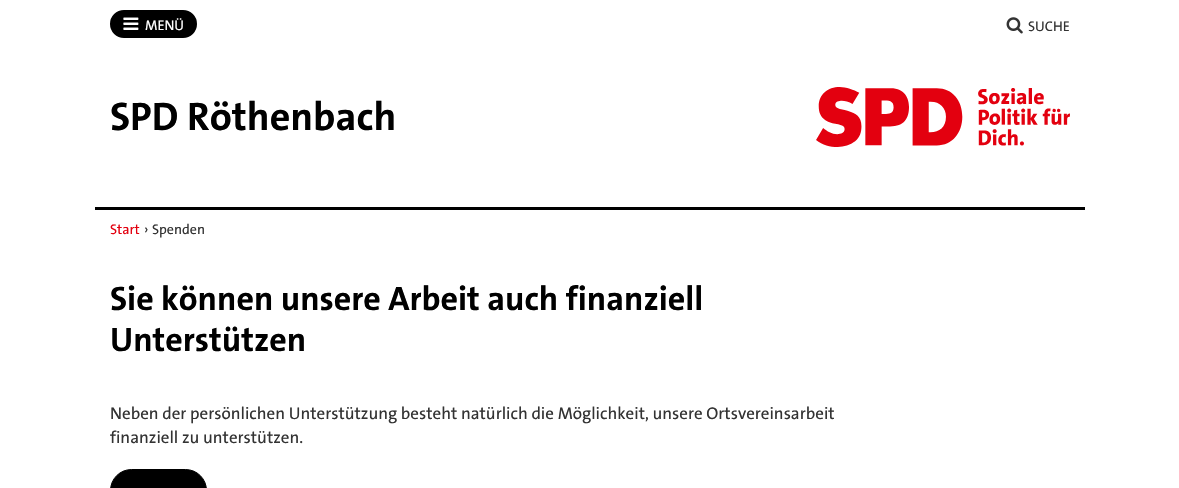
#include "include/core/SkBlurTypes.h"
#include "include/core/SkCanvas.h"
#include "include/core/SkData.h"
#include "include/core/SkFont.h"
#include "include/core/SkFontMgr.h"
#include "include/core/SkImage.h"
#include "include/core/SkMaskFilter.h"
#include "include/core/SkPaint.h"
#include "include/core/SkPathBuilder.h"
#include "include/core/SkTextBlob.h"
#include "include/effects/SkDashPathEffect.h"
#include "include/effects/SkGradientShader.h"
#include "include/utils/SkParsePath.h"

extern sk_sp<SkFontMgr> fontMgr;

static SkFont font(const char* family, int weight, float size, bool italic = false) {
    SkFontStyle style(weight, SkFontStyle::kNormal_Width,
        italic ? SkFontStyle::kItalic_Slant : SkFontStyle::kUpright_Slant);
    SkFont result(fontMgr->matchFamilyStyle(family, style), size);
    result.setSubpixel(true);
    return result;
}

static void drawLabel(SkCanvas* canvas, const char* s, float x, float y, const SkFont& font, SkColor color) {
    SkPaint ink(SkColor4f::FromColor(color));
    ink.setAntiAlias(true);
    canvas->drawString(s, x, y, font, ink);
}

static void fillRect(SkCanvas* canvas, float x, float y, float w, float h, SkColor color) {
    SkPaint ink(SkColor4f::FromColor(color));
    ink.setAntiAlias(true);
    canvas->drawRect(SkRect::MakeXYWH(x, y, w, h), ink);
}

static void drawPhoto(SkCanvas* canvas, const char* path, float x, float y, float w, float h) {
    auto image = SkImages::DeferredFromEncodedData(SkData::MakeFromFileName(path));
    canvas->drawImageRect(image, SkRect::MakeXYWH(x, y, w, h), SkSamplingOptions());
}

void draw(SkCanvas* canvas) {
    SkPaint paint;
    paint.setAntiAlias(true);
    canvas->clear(0xFFFFFFFF);
    paint.setColor(0xFF000000);
    canvas->drawRoundRect(SkRect::MakeXYWH(111, 11, 85, 26), 13, 13, paint);
    paint.setStroke(true);
    paint.setStrokeWidth(2);
    canvas->drawRoundRect(SkRect::MakeXYWH(111, 11, 85, 26), 13, 13, paint);
    drawPhoto(canvas, "assets/img1.png", 123, 17, 16, 13);
    SkFont font1 = font("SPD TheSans", 500, 14);
    drawLabel(canvas, "MENÜ", 145, 30, font1, 0xFFFFFFFF);
    drawPhoto(canvas, "assets/img2.png", 1006, 17, 17, 17);
    drawLabel(canvas, "SUCHE", 1028, 31, font1, 0xFF333333);
    SkFont font2 = font("SPD TheSans", 700, 40);
    drawLabel(canvas, "SPD Röthenbach", 110, 130, font2, 0xFF000000);
    drawPhoto(canvas, "assets/img3.png", 816, 87, 254, 60);
    fillRect(canvas, 95, 207, 990, 3, 0xFF000000);
    drawLabel(canvas, "Start", 110, 234, font1, 0xFFE3000F);
    drawLabel(canvas, "›", 144, 234, font1, 0xFF333333);
    drawLabel(canvas, "Spenden", 152, 234, font1, 0xFF333333);
    SkFont font3 = font("SPD TheSans", 700, 34);
    drawLabel(canvas, "Sie können unsere Arbeit auch finanziell", 110, 310, font3, 0xFF000000);
    drawLabel(canvas, "Unterstützen", 110, 351, font3, 0xFF000000);
    SkFont font4 = font("SPD TheSans", 500, 17);
    drawLabel(canvas, "Neben der persönlichen Unterstützung besteht natürlich die Möglichkeit, unsere Ortsvereinsarbeit", 110, 419, font4, 0xFF333333);
    drawLabel(canvas, "finanziell zu unterstützen.", 110, 443, font4, 0xFF333333);
    paint.setStroke(false);
    canvas->drawRoundRect(SkRect::MakeXYWH(110.5f, 469.5f, 96, 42), 22, 22, paint);
    paint.setStroke(true);
    paint.setStrokeWidth(1);
    canvas->drawRoundRect(SkRect::MakeXYWH(110.5f, 469.5f, 96, 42), 22, 22, paint);
}
